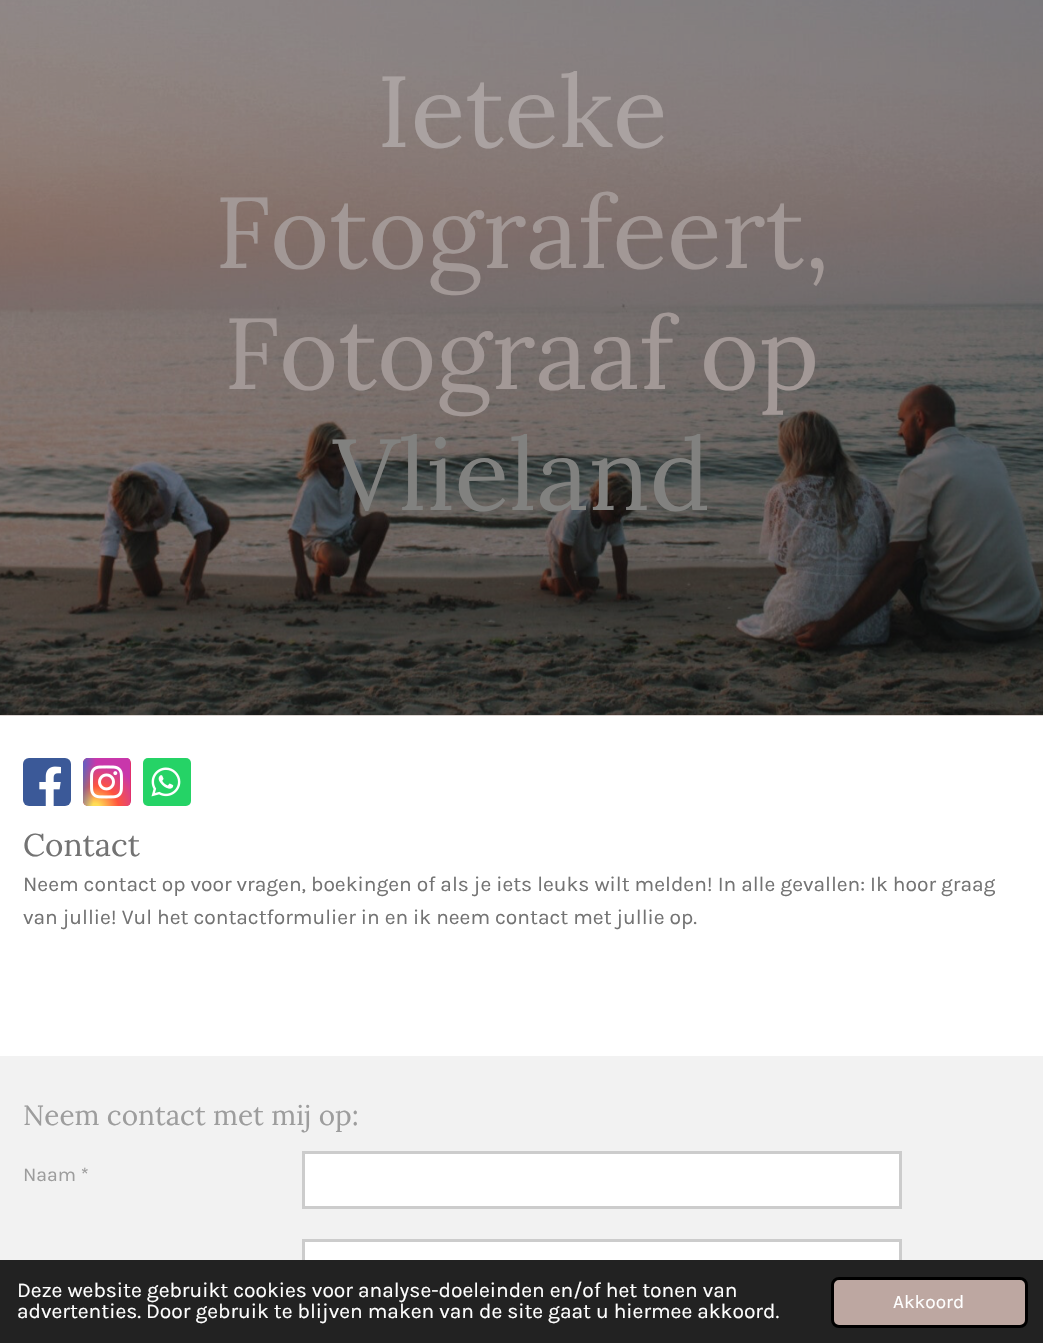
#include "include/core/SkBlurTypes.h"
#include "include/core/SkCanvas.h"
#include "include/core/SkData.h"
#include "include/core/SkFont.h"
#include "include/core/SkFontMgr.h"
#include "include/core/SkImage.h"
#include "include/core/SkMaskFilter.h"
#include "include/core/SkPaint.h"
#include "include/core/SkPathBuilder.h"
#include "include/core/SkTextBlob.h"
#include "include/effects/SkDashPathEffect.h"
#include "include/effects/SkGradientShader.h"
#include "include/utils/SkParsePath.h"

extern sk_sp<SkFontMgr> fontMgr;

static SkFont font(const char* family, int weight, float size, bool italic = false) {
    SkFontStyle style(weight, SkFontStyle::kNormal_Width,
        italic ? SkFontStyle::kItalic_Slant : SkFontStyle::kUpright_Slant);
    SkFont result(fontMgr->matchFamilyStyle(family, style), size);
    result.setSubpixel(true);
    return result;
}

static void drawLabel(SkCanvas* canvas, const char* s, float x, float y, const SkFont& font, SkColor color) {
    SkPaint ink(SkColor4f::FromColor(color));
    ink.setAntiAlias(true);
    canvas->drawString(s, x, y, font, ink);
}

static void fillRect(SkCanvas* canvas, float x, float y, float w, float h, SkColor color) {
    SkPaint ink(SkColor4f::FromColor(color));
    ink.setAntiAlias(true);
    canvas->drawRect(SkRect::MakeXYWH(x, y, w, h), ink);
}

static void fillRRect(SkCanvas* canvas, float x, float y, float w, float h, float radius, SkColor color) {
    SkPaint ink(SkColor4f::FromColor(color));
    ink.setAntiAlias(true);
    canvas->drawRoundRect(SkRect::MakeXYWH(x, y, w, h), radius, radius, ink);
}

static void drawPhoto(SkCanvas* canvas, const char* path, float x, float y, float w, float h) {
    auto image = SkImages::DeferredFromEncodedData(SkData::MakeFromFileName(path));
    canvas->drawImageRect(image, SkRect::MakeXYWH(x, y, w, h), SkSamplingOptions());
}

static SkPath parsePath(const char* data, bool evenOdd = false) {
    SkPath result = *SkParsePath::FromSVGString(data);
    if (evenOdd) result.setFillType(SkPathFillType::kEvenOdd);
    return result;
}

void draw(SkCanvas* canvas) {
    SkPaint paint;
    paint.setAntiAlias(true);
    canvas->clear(0xFFE7DFDD);
    drawPhoto(canvas, "assets/img1.png", 0, 0, 1043, 715);
    SkFont font1 = font("Lora", 400, 100.75f);
    drawLabel(canvas, "Ieteke", 377, 147, font1, 0xFFAAA2A1);
    drawLabel(canvas, "Fotografeert,", 215, 268, font1, 0xFFA29896);
    drawLabel(canvas, "Fotograaf op", 224, 389, font1, 0xFFA29896);
    drawLabel(canvas, "Vlieland", 333, 510, font1, 0xFF81817F);
    paint.setColor(0x1A000000);
    paint.setMaskFilter(SkMaskFilter::MakeBlur(kNormal_SkBlurStyle, 4));
    canvas->drawRect(SkRect::MakeXYWH(0, 716, 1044, 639), paint);
    paint.setMaskFilter(nullptr);
    fillRect(canvas, 0, 716, 1043, 340, 0xFFFFFFFF);
    fillRRect(canvas, 23, 758, 48, 48, 6, 0xFF3B5998);
    drawPhoto(canvas, "assets/img2.png", 39, 766, 22, 40);
    fillRRect(canvas, 83, 758, 48, 48, 5, 0xFFE1306C);
    canvas->save();
    canvas->clipPath(parsePath("M88 758H126C129 758 131 760 131 763V801C131 804 129 806 126 806H88C85 806 83 804 83 801V763C83 760 85 758 88 758Z"), true);
    {
        const SkColor colors[] = {0xFFFFDD55, 0xFFFFDD55, 0xFFFF543E, 0xFFC837AB};
        const float stops[] = {0, 0.1f, 0.5f, 1};
        SkMatrix m = SkMatrix::Translate(95, 808).preScale(47, 44);
        paint.setShader(SkGradientShader::MakeRadial({0, 0}, 1, colors, stops, 4, SkTileMode::kClamp, 0, &m));
        paint.setAlpha(255);
    }
    canvas->drawPath(parsePath("M88 758H130V806H88C85 806 83 804 83 801V763C83 760 85 758 88 758Z"), paint);
    {
        const SkColor colors[] = {0xFF3771C8, 0xFF3771C8, 0x003771C8};
        const float stops[] = {0, 0.13f, 1};
        SkMatrix m = SkMatrix::Translate(75, 761).preScale(21, 86);
        paint.setShader(SkGradientShader::MakeRadial({0, 0}, 1, colors, stops, 3, SkTileMode::kClamp, 0, &m));
        paint.setAlpha(255);
    }
    canvas->drawPath(parsePath("M88 758H130V806H88C85 806 83 804 83 801V763C83 760 85 758 88 758Z"), paint);
    canvas->restore();
    drawPhoto(canvas, "assets/img3.png", 90, 765, 33, 34);
    fillRRect(canvas, 143, 758, 48, 48, 5, 0xFF25D366);
    drawPhoto(canvas, "assets/img4.png", 151, 767, 30, 30);
    SkFont font2 = font("Lora", 400, 31.5f);
    drawLabel(canvas, "Contact", 23, 856, font2, 0xFF737373);
    SkFont font3 = font("Karla", 400, 21);
    drawLabel(canvas, "Neem contact op voor vragen, boekingen of als je iets leuks wilt melden! In alle gevallen: Ik hoor graag", 23, 891, font3, 0xFF737373);
    drawLabel(canvas, "van jullie! Vul het contactformulier in en ik neem contact met jullie op.", 23, 924, font3, 0xFF737373);
    fillRect(canvas, 0, 1056, 1043, 204, 0xFFF2F2F2);
    SkFont font4 = font("Lora", 400, 27.9f);
    drawLabel(canvas, "Neem contact met mij op:", 23, 1125, font4, 0xFF9D9D9D);
    SkFont font5 = font("Karla", 400, 19.5f);
    drawLabel(canvas, "Naam *", 23, 1181, font5, 0xFF9D9D9D);
    paint.setShader(nullptr);
    paint.setColor(0xFFFFFFFF);
    canvas->drawRect(SkRect::MakeXYWH(303.5f, 1152.5f, 597, 55), paint);
    paint.setStroke(true);
    paint.setStrokeWidth(3);
    paint.setColor(0xFFCCCCCC);
    canvas->drawRect(SkRect::MakeXYWH(303.5f, 1152.5f, 597, 55), paint);
    fillRect(canvas, 305, 1242, 594, 18, 0xFFFFFFFF);
    canvas->drawRect(SkRect::MakeXYWH(303.5f, 1240.5f, 597, 56), paint);
    fillRect(canvas, 0, 1260, 1043, 83, 0xFF222222);
    drawLabel(canvas, "Deze website gebruikt cookies voor analyse-doeleinden en/of het tonen van", 17, 1297, font3, 0xFFFFFFFF);
    drawLabel(canvas, "advertenties. Door gebruik te blijven maken van de site gaat u hiermee akkoord.", 17, 1318, font3, 0xFFFFFFFF);
    paint.setStroke(false);
    paint.setColor(0xFFBDA7A1);
    canvas->drawRoundRect(SkRect::MakeXYWH(832.5f, 1278.5f, 194, 48), 6.5f, 6.5f, paint);
    paint.setStroke(true);
    paint.setColor(0xFF000000);
    canvas->drawRoundRect(SkRect::MakeXYWH(832.5f, 1278.5f, 194, 48), 6.5f, 6.5f, paint);
    SkFont font6 = font("Karla", 400, 19);
    drawLabel(canvas, "Akkoord", 893, 1308, font6, 0xFFFFFFFF);
}
